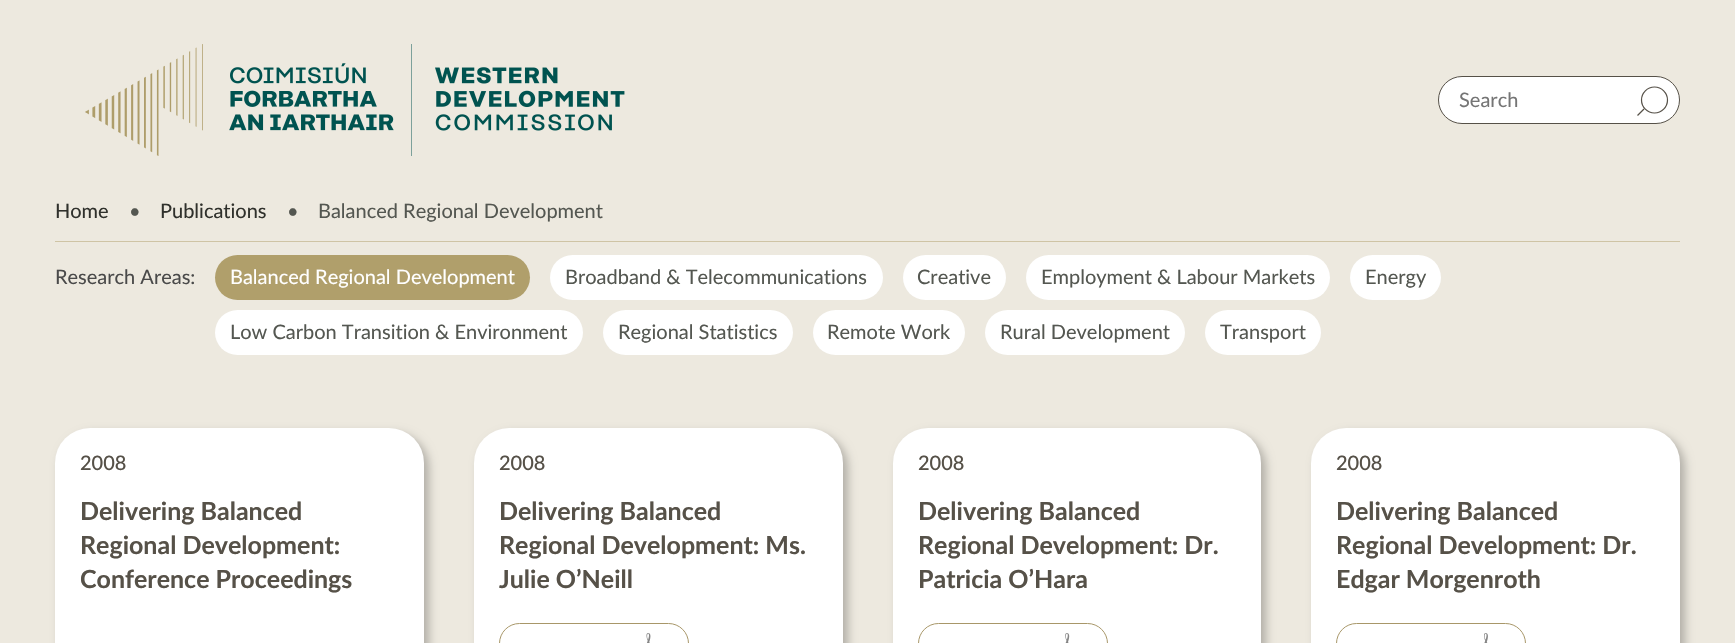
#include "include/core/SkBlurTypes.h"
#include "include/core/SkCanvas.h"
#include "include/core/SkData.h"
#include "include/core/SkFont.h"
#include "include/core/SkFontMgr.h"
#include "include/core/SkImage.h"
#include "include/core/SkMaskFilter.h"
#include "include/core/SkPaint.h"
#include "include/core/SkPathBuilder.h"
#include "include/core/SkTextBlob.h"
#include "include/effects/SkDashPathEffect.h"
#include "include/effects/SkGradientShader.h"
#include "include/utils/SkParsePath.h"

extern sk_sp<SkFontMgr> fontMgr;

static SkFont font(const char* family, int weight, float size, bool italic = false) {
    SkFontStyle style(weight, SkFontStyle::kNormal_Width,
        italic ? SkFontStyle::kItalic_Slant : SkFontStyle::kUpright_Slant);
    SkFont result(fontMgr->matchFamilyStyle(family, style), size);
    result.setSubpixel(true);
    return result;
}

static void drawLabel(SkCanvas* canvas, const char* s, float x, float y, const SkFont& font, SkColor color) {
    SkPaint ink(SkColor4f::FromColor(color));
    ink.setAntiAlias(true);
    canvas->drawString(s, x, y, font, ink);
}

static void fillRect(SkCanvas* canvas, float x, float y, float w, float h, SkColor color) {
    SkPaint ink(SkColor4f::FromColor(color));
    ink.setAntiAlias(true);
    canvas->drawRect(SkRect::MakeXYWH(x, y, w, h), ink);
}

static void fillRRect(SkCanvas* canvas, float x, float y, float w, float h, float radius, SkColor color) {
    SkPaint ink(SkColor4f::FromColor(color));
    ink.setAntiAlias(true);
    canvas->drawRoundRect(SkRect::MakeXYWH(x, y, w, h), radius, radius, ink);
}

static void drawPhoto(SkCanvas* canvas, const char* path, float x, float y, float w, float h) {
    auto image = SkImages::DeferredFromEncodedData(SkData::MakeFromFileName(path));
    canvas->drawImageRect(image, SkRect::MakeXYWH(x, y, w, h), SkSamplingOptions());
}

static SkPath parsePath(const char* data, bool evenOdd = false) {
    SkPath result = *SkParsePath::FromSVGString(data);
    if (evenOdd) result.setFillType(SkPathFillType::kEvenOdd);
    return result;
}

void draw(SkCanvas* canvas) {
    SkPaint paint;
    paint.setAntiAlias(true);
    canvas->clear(0xFFEDE9DF);
    drawPhoto(canvas, "assets/img1.png", 85, 44, 540, 112);
    paint.setColor(0xFFFFFFFF);
    canvas->drawRoundRect(SkRect::MakeXYWH(1438.5f, 76.5f, 241, 47), 23.5f, 23.5f, paint);
    paint.setStroke(true);
    paint.setStrokeWidth(1);
    paint.setColor(0xFF565148);
    canvas->drawRoundRect(SkRect::MakeXYWH(1438.5f, 76.5f, 241, 47), 23.5f, 23.5f, paint);
    SkFont font1 = font("Lato", 400, 20);
    drawLabel(canvas, "Search", 1459, 107, font1, 0xFF757575);
    paint.setStrokeWidth(1.2f);
    canvas->drawCircle(1654.5f, 100, 13, paint);
    canvas->drawPath(parsePath("M1637.5 115.5L1644 109"), paint);
    fillRect(canvas, 55, 241, 1625, 1, 0xFFCFC4A5);
    drawLabel(canvas, "Home", 55, 218, font1, 0xFF30312C);
    drawLabel(canvas, "•", 129, 218, font1, 0xFF545751);
    drawLabel(canvas, "Publications", 160, 218, font1, 0xFF30312C);
    drawLabel(canvas, "•", 287, 218, font1, 0xFF545751);
    drawLabel(canvas, "Balanced Regional Development", 318, 218, font1, 0xFF545751);
    drawLabel(canvas, "Research Areas:", 55, 284, font1, 0xFF4A4A4A);
    fillRRect(canvas, 215, 255, 315, 45, 22.5f, 0xFFB09F6B);
    drawLabel(canvas, "Balanced Regional Development", 230, 284, font1, 0xFFFFFFFF);
    fillRRect(canvas, 550, 255, 333, 45, 22.5f, 0xFFFFFFFF);
    drawLabel(canvas, "Broadband & Telecommunications", 565, 284, font1, 0xFF545751);
    fillRRect(canvas, 903, 255, 103, 45, 22.5f, 0xFFFFFFFF);
    drawLabel(canvas, "Creative", 917, 284, font1, 0xFF545751);
    fillRRect(canvas, 1026, 255, 304, 45, 22.5f, 0xFFFFFFFF);
    drawLabel(canvas, "Employment & Labour Markets", 1041, 284, font1, 0xFF545751);
    fillRRect(canvas, 1350, 255, 91, 45, 22.5f, 0xFFFFFFFF);
    drawLabel(canvas, "Energy", 1365, 284, font1, 0xFF545751);
    fillRRect(canvas, 215, 310, 368, 45, 22.5f, 0xFFFFFFFF);
    drawLabel(canvas, "Low Carbon Transition & Environment", 230, 339, font1, 0xFF545751);
    fillRRect(canvas, 603, 310, 190, 45, 22.5f, 0xFFFFFFFF);
    drawLabel(canvas, "Regional Statistics", 618, 339, font1, 0xFF545751);
    fillRRect(canvas, 813, 310, 152, 45, 22.5f, 0xFFFFFFFF);
    drawLabel(canvas, "Remote Work", 827, 339, font1, 0xFF545751);
    fillRRect(canvas, 985, 310, 200, 45, 22.5f, 0xFFFFFFFF);
    drawLabel(canvas, "Rural Development", 1000, 339, font1, 0xFF545751);
    fillRRect(canvas, 1205, 310, 116, 45, 22.5f, 0xFFFFFFFF);
    drawLabel(canvas, "Transport", 1220, 339, font1, 0xFF545751);
    paint.setStroke(false);
    paint.setColor(0x40000000);
    paint.setMaskFilter(SkMaskFilter::MakeBlur(kNormal_SkBlurStyle, 5));
    canvas->drawRoundRect(SkRect::MakeXYWH(60, 433, 369, 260), 35, 35, paint);
    paint.setMaskFilter(nullptr);
    fillRRect(canvas, 55, 428, 369, 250, 35, 0xFFFFFFFF);
    SkFont font2 = font("Lato", 500, 20);
    drawLabel(canvas, "2008", 80, 470, font2, 0xFF565148);
    SkFont font3 = font("Lato", 700, 25);
    drawLabel(canvas, "Delivering Balanced", 80, 520, font3, 0xFF565148);
    drawLabel(canvas, "Regional Development:", 80, 554, font3, 0xFF565148);
    drawLabel(canvas, "Conference Proceedings", 80, 588, font3, 0xFF565148);
    paint.setMaskFilter(SkMaskFilter::MakeBlur(kNormal_SkBlurStyle, 5));
    canvas->drawRoundRect(SkRect::MakeXYWH(479, 433, 369, 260), 35, 35, paint);
    paint.setMaskFilter(nullptr);
    fillRRect(canvas, 474, 428, 369, 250, 35, 0xFFFFFFFF);
    drawLabel(canvas, "2008", 499, 470, font2, 0xFF565148);
    drawLabel(canvas, "Delivering Balanced", 499, 520, font3, 0xFF565148);
    drawLabel(canvas, "Regional Development: Ms.", 499, 554, font3, 0xFF565148);
    drawLabel(canvas, "Julie O’Neill", 499, 588, font3, 0xFF565148);
    paint.setStroke(true);
    paint.setStrokeWidth(1);
    paint.setColor(0xFFA89769);
    canvas->drawRoundRect(SkRect::MakeXYWH(499.5f, 623.5f, 189, 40), 20, 20, paint);
    drawPhoto(canvas, "assets/img2.png", 646, 633, 5, 10);
    paint.setStroke(false);
    paint.setColor(0x40000000);
    paint.setMaskFilter(SkMaskFilter::MakeBlur(kNormal_SkBlurStyle, 5));
    canvas->drawRoundRect(SkRect::MakeXYWH(898, 433, 368, 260), 35, 35, paint);
    paint.setMaskFilter(nullptr);
    fillRRect(canvas, 893, 428, 368, 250, 35, 0xFFFFFFFF);
    drawLabel(canvas, "2008", 918, 470, font2, 0xFF565148);
    drawLabel(canvas, "Delivering Balanced", 918, 520, font3, 0xFF565148);
    drawLabel(canvas, "Regional Development: Dr.", 918, 554, font3, 0xFF565148);
    drawLabel(canvas, "Patricia O’Hara", 918, 588, font3, 0xFF565148);
    paint.setStroke(true);
    paint.setColor(0xFFA89769);
    canvas->drawRoundRect(SkRect::MakeXYWH(918.5f, 623.5f, 189, 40), 20, 20, paint);
    drawPhoto(canvas, "assets/img3.png", 1065, 633, 5, 10);
    paint.setStroke(false);
    paint.setColor(0x40000000);
    paint.setMaskFilter(SkMaskFilter::MakeBlur(kNormal_SkBlurStyle, 5));
    canvas->drawRoundRect(SkRect::MakeXYWH(1316, 433, 369, 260), 35, 35, paint);
    paint.setMaskFilter(nullptr);
    fillRRect(canvas, 1311, 428, 369, 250, 35, 0xFFFFFFFF);
    drawLabel(canvas, "2008", 1336, 470, font2, 0xFF565148);
    drawLabel(canvas, "Delivering Balanced", 1336, 520, font3, 0xFF565148);
    drawLabel(canvas, "Regional Development: Dr.", 1336, 554, font3, 0xFF565148);
    drawLabel(canvas, "Edgar Morgenroth", 1336, 588, font3, 0xFF565148);
    paint.setStroke(true);
    paint.setColor(0xFFA89769);
    canvas->drawRoundRect(SkRect::MakeXYWH(1336.5f, 623.5f, 189, 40), 20, 20, paint);
    drawPhoto(canvas, "assets/img4.png", 1484, 633, 4, 10);
}
